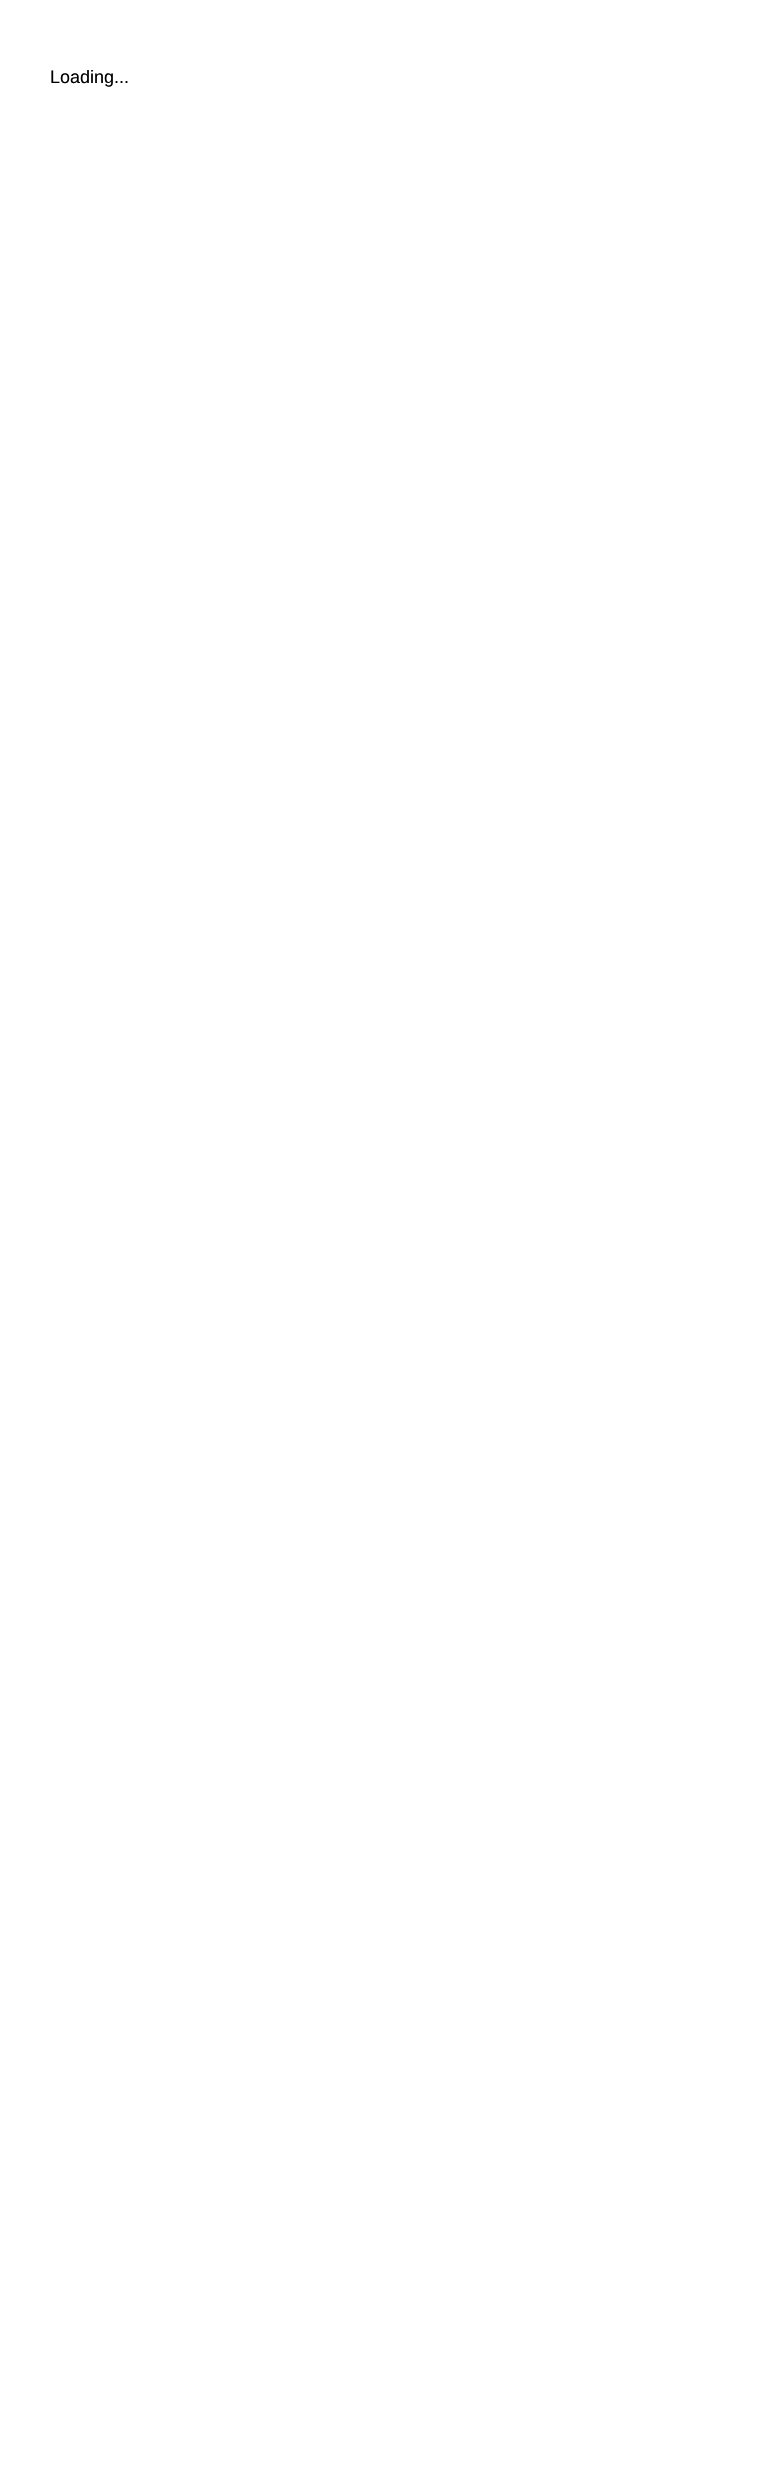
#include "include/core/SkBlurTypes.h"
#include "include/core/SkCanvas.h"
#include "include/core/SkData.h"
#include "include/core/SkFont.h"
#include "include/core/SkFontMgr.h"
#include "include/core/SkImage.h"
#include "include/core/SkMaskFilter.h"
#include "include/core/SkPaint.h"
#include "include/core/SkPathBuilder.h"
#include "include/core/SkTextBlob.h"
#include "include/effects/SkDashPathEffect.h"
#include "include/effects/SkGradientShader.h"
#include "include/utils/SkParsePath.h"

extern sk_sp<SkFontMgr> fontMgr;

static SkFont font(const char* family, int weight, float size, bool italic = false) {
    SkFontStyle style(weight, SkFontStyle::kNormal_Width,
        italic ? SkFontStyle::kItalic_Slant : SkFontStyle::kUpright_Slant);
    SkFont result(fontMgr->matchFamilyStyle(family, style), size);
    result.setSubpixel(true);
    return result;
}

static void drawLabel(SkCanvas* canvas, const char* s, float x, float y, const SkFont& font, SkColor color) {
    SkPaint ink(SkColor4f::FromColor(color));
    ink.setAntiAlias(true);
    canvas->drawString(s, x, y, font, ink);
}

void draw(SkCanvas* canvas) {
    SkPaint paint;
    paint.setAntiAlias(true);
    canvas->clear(0xFFFFFFFF);
    SkFont font1 = font("Liberation Sans", 400, 18);
    drawLabel(canvas, "Loading...", 50, 83, font1, 0xFF000000);
}
